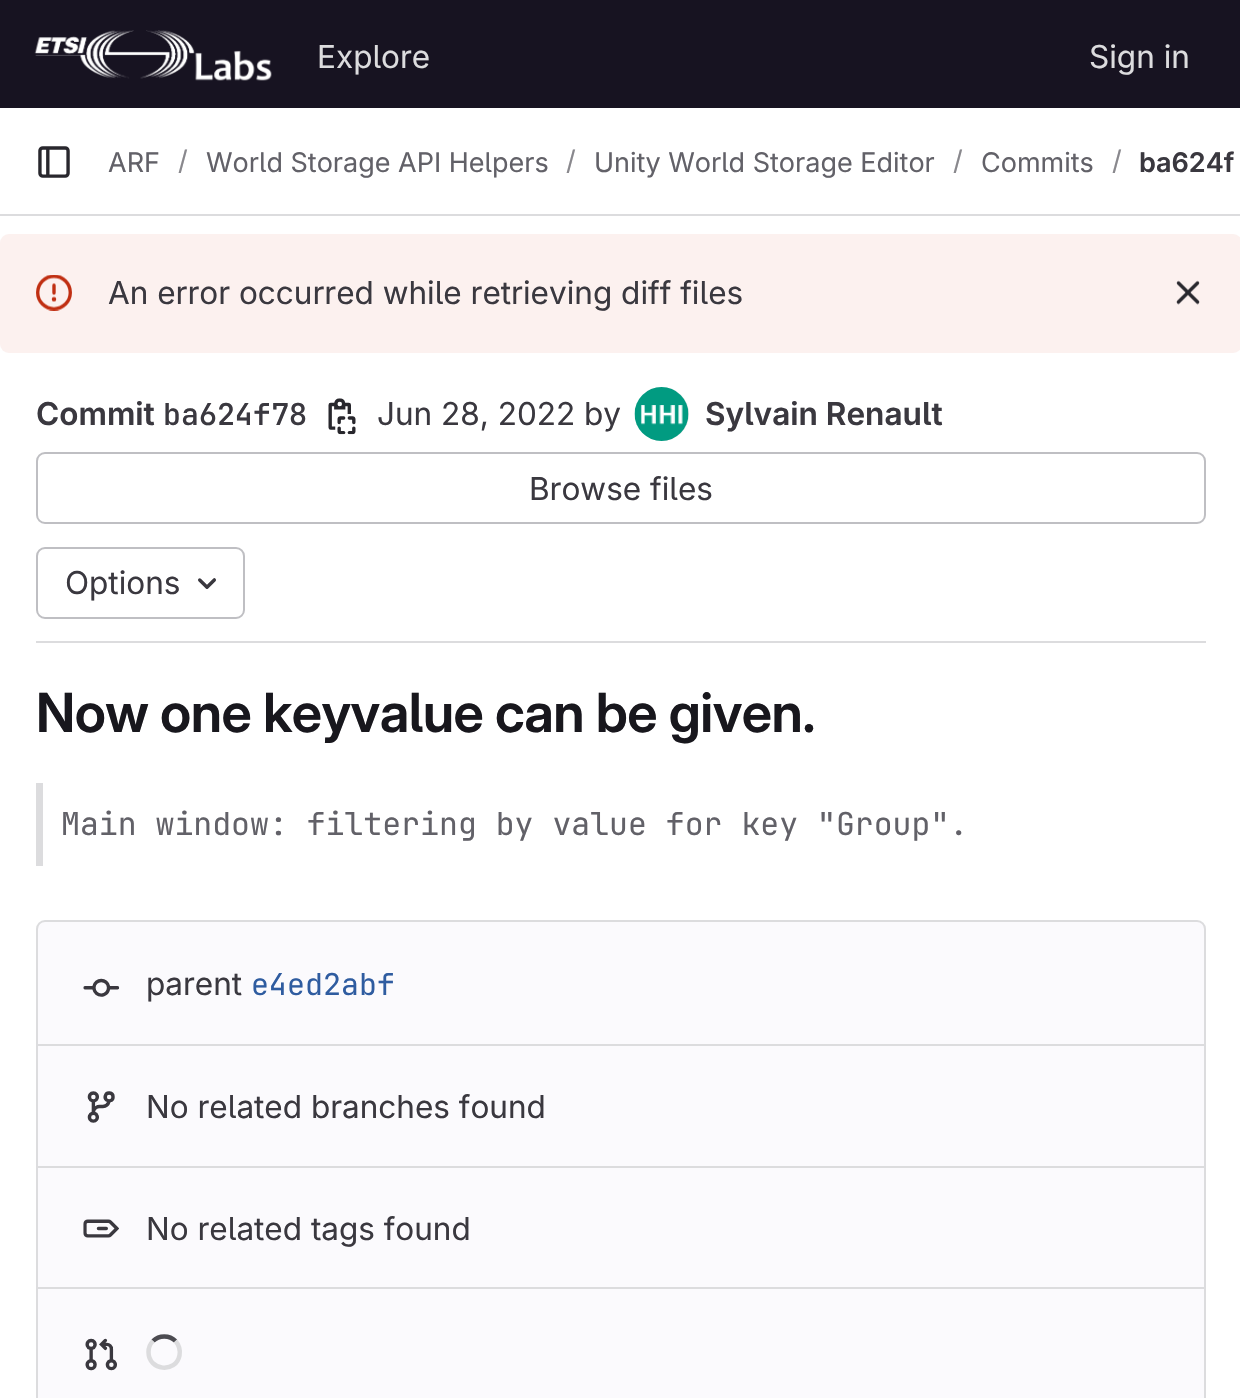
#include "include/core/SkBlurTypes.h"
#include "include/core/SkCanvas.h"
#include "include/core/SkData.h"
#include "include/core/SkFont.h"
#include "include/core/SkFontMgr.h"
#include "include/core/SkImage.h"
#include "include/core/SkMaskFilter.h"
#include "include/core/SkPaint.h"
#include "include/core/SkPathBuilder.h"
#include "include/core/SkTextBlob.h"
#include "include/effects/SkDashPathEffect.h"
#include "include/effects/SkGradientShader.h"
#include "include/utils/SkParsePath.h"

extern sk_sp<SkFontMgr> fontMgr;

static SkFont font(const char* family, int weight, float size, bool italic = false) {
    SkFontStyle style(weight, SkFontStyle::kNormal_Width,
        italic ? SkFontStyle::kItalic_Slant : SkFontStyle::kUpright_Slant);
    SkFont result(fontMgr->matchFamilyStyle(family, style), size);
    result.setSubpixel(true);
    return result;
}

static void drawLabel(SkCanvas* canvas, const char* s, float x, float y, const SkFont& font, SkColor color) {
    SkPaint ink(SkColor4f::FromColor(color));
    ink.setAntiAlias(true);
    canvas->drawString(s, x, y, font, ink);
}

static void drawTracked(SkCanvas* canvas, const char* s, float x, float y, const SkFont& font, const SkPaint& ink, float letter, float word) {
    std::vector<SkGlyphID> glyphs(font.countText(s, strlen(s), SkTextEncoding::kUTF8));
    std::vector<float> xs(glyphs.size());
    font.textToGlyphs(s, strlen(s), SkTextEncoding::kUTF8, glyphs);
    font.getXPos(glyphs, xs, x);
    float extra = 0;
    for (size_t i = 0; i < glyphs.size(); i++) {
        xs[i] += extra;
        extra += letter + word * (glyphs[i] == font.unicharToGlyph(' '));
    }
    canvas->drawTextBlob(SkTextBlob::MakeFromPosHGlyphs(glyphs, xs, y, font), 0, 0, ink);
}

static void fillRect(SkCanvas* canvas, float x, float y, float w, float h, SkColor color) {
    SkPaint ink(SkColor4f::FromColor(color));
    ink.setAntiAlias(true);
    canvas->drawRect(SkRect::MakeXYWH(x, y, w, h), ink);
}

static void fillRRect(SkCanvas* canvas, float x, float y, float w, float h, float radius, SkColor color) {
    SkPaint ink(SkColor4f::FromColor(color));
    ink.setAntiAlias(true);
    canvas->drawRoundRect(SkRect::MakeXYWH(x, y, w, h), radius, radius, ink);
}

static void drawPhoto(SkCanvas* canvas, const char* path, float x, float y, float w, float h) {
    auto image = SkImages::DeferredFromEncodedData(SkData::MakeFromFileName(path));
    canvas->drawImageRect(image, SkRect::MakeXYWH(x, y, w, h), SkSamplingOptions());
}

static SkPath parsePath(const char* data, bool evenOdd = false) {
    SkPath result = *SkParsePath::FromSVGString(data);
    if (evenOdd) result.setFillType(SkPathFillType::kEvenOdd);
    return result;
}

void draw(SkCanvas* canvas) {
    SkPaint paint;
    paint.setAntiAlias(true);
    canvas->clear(0xFFFFFFFF);
    fillRect(canvas, 0, 0, 1240, 108, 0xFF171321);
    drawPhoto(canvas, "assets/img1.png", 34, 30, 238, 51);
    SkFont font1 = font("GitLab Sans", 400, 31.5f);
    drawLabel(canvas, "Explore", 317, 68, font1, 0xFFDCDCDE);
    drawLabel(canvas, "Sign in", 1089, 68, font1, 0xFFDCDCDE);
    fillRect(canvas, 0, 214, 1240, 2, 0xFFDCDCDE);
    drawPhoto(canvas, "assets/img2.png", 38, 146, 32, 32);
    SkFont font2 = font("GitLab Sans", 400, 27);
    drawLabel(canvas, "ARF", 108, 172, font2, 0xFF626168);
    drawLabel(canvas, "/", 178, 170, font2, 0xFF89888D);
    drawLabel(canvas, "World Storage API Helpers", 206, 172, font2, 0xFF626168);
    drawLabel(canvas, "/", 566, 170, font2, 0xFF89888D);
    drawLabel(canvas, "Unity World Storage Editor", 594, 172, font2, 0xFF626168);
    drawLabel(canvas, "/", 953, 170, font2, 0xFF89888D);
    drawLabel(canvas, "Commits", 981, 172, font2, 0xFF626168);
    drawLabel(canvas, "/", 1112, 170, font2, 0xFF89888D);
    SkFont font3 = font("GitLab Sans", 600, 27);
    drawLabel(canvas, "ba624f", 1139, 172, font3, 0xFF3A383F);
    fillRRect(canvas, 0, 234, 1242, 119, 9, 0xFFFCF1EF);
    drawPhoto(canvas, "assets/img3.png", 36, 275, 36, 36);
    drawLabel(canvas, "An error occurred while retrieving diff files", 108, 304, font1, 0xFF3A383F);
    drawPhoto(canvas, "assets/img4.png", 1176, 280, 24, 25);
    SkFont font4 = font("GitLab Sans", 600, 31.5f);
    drawLabel(canvas, "Commit", 36, 425, font4, 0xFF3A383F);
    SkFont font5 = font("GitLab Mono", 600, 30);
    drawLabel(canvas, "ba624f78", 163, 425, font5, 0xFF3A383F);
    drawPhoto(canvas, "assets/img5.png", 328, 398, 28, 37);
    drawLabel(canvas, "Jun 28, 2022 by", 377, 425, font1, 0xFF3A383F);
    paint.setStroke(true);
    paint.setStrokeWidth(2);
    paint.setColor(0xFFE8E7E9);
    canvas->drawCircle(662, 414, 26, paint);
    drawPhoto(canvas, "assets/img6.png", 634, 387, 55, 54);
    drawLabel(canvas, "Sylvain Renault", 705, 425, font4, 0xFF3A383F);
    paint.setColor(0xFFBFBFC3);
    canvas->drawRoundRect(SkRect::MakeXYWH(37, 453, 1168, 70), 8, 8, paint);
    drawLabel(canvas, "Browse files", 529, 500, font1, 0xFF3A383F);
    canvas->drawRoundRect(SkRect::MakeXYWH(37, 548, 207, 70), 8, 8, paint);
    drawLabel(canvas, "Options", 65, 594, font1, 0xFF3A383F);
    drawPhoto(canvas, "assets/img7.png", 198, 578, 18, 11);
    fillRect(canvas, 36, 641, 1170, 2, 0xFFDCDCDE);
    SkFont font6 = font("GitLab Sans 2", 600, 54);
    paint.setStroke(false);
    paint.setColor(0xFF18171D);
    drawTracked(canvas, "Now one keyvalue can be given.", 36, 732, font6, paint, -0.55f, 0);
    fillRect(canvas, 36, 783, 7, 83, 0xFFDCDCDE);
    SkFont font7 = font("GitLab Mono", 400, 31.5f);
    drawLabel(canvas, "Main window: filtering by value for key \"Group\".", 61, 835, font7, 0xFF626168);
    paint.setColor(0xFFFBFAFD);
    canvas->drawRoundRect(SkRect::MakeXYWH(37, 921, 1168, 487), 8, 8, paint);
    paint.setStroke(true);
    paint.setColor(0xFFDCDCDE);
    canvas->drawRoundRect(SkRect::MakeXYWH(37, 921, 1168, 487), 8, 8, paint);
    drawPhoto(canvas, "assets/img8.png", 83, 978, 37, 19);
    drawLabel(canvas, "parent", 146, 995, font1, 0xFF3A383F);
    SkFont font8 = font("GitLab Mono", 400, 30);
    drawLabel(canvas, "e4ed2abf", 251, 995, font8, 0xFF2F5CA0);
    fillRect(canvas, 38, 1044, 1166, 2, 0xFFDCDCDE);
    drawPhoto(canvas, "assets/img9.png", 87, 1091, 28, 32);
    drawLabel(canvas, "No related branches found", 146, 1118, font1, 0xFF3A383F);
    fillRect(canvas, 38, 1166, 1166, 2, 0xFFDCDCDE);
    drawPhoto(canvas, "assets/img10.png", 83, 1219, 36, 19);
    drawLabel(canvas, "No related tags found", 146, 1240, font1, 0xFF3A383F);
    fillRect(canvas, 38, 1287, 1166, 2, 0xFFDCDCDE);
    drawPhoto(canvas, "assets/img11.png", 85, 1338, 32, 33);
    paint.setStrokeWidth(4.5f);
    paint.setColor(0xFF4C4B51);
    canvas->drawPath(parsePath("M153 1341C159 1335 169.5 1335 175.5 1341"), paint);
    paint.setColor(0xFFDCDCDE);
    canvas->drawPath(parsePath("M175.5 1341C179 1345 180.5 1350 179.5 1355.5C176 1373.5 148.5 1371 148.5 1352C148.5 1348 150 1344 153 1341"), paint);
}
